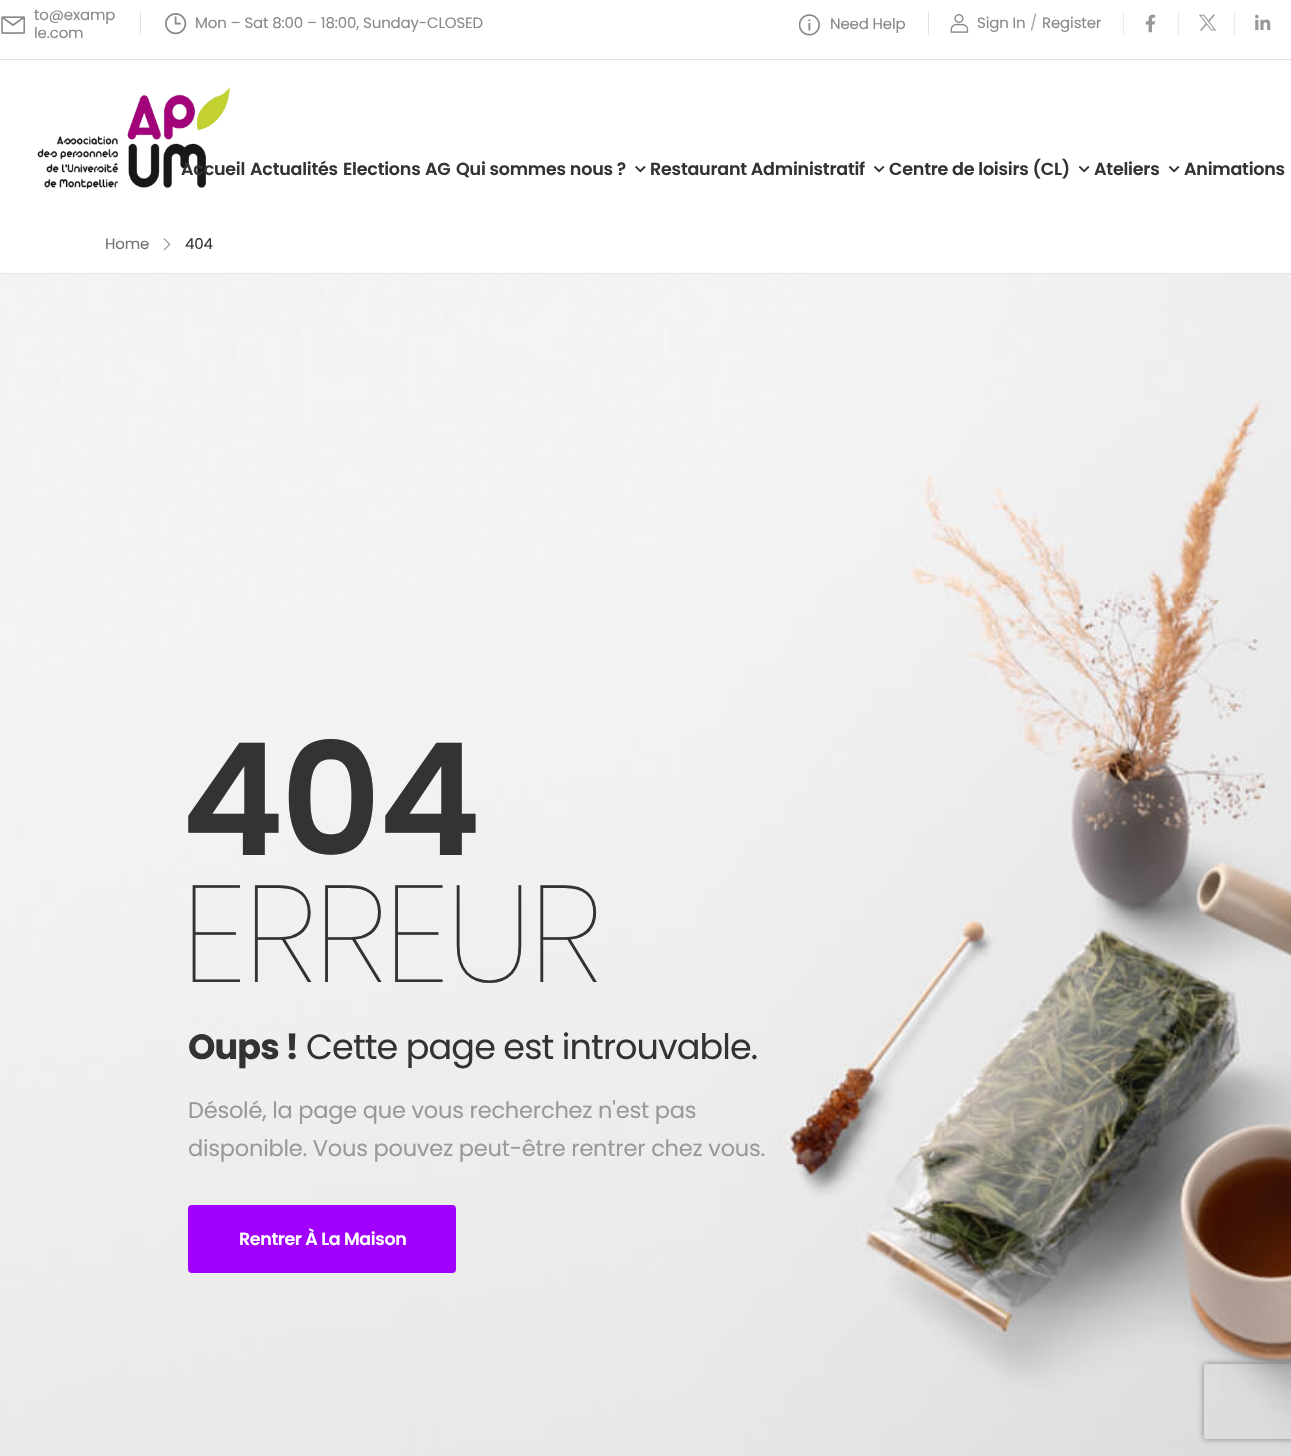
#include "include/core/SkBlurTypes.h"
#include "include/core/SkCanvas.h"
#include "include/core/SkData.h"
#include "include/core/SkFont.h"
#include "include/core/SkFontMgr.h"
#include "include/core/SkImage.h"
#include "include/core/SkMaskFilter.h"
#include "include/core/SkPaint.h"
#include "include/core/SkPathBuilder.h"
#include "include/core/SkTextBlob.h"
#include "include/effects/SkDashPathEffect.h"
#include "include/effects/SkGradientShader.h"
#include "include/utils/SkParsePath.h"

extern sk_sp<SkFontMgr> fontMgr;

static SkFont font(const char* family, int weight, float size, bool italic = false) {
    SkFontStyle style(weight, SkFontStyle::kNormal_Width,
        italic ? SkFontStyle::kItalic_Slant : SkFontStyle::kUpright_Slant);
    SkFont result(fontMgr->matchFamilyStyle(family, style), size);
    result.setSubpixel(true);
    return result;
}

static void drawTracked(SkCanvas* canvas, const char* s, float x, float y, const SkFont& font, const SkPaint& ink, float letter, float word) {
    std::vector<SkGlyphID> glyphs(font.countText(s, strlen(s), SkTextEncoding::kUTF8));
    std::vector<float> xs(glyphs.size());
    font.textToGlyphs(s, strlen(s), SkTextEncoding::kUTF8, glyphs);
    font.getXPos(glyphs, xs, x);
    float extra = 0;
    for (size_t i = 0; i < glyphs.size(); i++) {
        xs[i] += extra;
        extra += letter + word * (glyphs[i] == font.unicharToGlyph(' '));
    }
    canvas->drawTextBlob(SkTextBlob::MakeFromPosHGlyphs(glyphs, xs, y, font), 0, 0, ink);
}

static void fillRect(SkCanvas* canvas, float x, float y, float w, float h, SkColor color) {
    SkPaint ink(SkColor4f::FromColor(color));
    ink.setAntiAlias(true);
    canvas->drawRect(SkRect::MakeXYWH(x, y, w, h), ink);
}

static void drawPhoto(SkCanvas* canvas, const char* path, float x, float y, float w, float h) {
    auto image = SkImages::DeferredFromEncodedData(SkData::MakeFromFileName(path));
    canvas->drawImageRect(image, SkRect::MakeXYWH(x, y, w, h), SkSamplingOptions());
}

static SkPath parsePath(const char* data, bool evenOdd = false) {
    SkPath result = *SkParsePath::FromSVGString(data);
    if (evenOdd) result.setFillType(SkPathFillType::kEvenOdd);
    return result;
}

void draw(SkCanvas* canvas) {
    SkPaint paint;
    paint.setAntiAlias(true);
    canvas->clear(0xFFFFFFFF);
    fillRect(canvas, 0, 59, 1291, 1, 0xFFE1E1E1);
    drawPhoto(canvas, "assets/img1.png", 1, 16, 24, 18);
    SkFont font1 = font("Poppins", 400, 15);
    paint.setColor(0xFF888888);
    drawTracked(canvas, "to@examp", 34, 20, font1, paint, -0.15f, 0);
    drawTracked(canvas, "le.com", 34, 38, font1, paint, -0.15f, 0);
    fillRect(canvas, 140, 11, 1, 24, 0xFFE1E1E1);
    drawPhoto(canvas, "assets/img2.png", 165, 13, 22, 22);
    drawTracked(canvas, "Mon – Sat 8:00 – 18:00, Sunday-CLOSED", 195, 28, font1, paint, -0.15f, 0);
    drawPhoto(canvas, "assets/img3.png", 799, 14, 21, 22);
    drawTracked(canvas, "Need Help", 830, 29, font1, paint, -0.15f, 0);
    fillRect(canvas, 928, 11, 1, 24, 0xFFE1E1E1);
    drawPhoto(canvas, "assets/img4.png", 950, 14, 19, 19);
    drawTracked(canvas, "Sign In", 977, 28, font1, paint, -0.15f, 0);
    paint.setColor(0xFFAAAAAA);
    drawTracked(canvas, "/", 1030, 28, font1, paint, -0.15f, 0);
    paint.setColor(0xFF888888);
    drawTracked(canvas, "Register", 1042, 28, font1, paint, -0.15f, 0);
    fillRect(canvas, 1123, 11, 1, 25, 0xFFEBEBEB);
    drawPhoto(canvas, "assets/img5.png", 1145, 14, 11, 19);
    fillRect(canvas, 1178, 11, 1, 25, 0xFFEBEBEB);
    drawPhoto(canvas, "assets/img6.png", 1199, 14, 17, 17);
    fillRect(canvas, 1234, 11, 1, 25, 0xFFEBEBEB);
    drawPhoto(canvas, "assets/img7.png", 1255, 14, 16, 16);
    drawPhoto(canvas, "assets/img8.png", 37, 87, 194, 102);
    SkFont font2 = font("Poppins", 600, 17.5f);
    paint.setColor(0xFF323334);
    drawTracked(canvas, "Accueil", 181, 175, font2, paint, -0.22f, 0);
    drawTracked(canvas, "Actualités", 250, 175, font2, paint, -0.22f, 0);
    drawTracked(canvas, "Elections", 343, 175, font2, paint, -0.22f, 0);
    drawTracked(canvas, "AG", 425, 175, font2, paint, -0.22f, 0);
    drawTracked(canvas, "Qui sommes nous ?", 456, 175, font2, paint, -0.22f, 0);
    drawPhoto(canvas, "assets/img9.png", 635, 166, 11, 7);
    drawTracked(canvas, "Restaurant Administratif", 650, 175, font2, paint, -0.22f, 0);
    drawPhoto(canvas, "assets/img10.png", 873, 166, 12, 7);
    drawTracked(canvas, "Centre de loisirs (CL)", 889, 175, font2, paint, -0.22f, 0);
    drawPhoto(canvas, "assets/img10.png", 1078, 166, 12, 7);
    drawTracked(canvas, "Ateliers", 1094, 175, font2, paint, -0.22f, 0);
    drawPhoto(canvas, "assets/img10.png", 1168, 166, 12, 7);
    drawTracked(canvas, "Animations", 1184, 175, font2, paint, -0.22f, 0);
    fillRect(canvas, 0, 273, 1291, 1, 0xFFE1E1E1);
    paint.setColor(0xFF707071);
    drawTracked(canvas, "Home", 105, 249, font1, paint, -0.15f, 0);
    drawPhoto(canvas, "assets/img11.png", 163, 238, 8, 13);
    paint.setColor(0xFF323334);
    drawTracked(canvas, "404", 185, 249, font1, paint, -0.15f, 0);
    drawPhoto(canvas, "assets/img12.png", 0, 273, 1291, 1183);
    SkFont font3 = font("Poppins", 600, 156);
    drawTracked(canvas, "404", 181, 855, font3, paint, -3.5f, 0);
    SkFont font4 = font("Poppins", 100, 137.5f);
    drawTracked(canvas, "ERREUR", 181, 982, font4, paint, -3.5f, 0);
    SkFont font5 = font("Poppins", 700, 35);
    drawTracked(canvas, "Oups !", 188, 1059, font5, paint, -0.9f, 0);
    SkFont font6 = font("Poppins", 400, 35);
    drawTracked(canvas, "Cette page est introuvable.", 306, 1059, font6, paint, -0.9f, 0);
    SkFont font7 = font("Poppins", 400, 22.5f);
    paint.setColor(0xFF999999);
    drawTracked(canvas, "Désolé, la page que vous recherchez n'est pas", 188, 1118, font7, paint, -0.22f, 0);
    drawTracked(canvas, "disponible. Vous pouvez peut-être rentrer chez vous.", 188, 1156, font7, paint, -0.22f, 0);
    paint.setColor(0xFFA000FC);
    canvas->drawRoundRect(SkRect::MakeXYWH(189.5f, 1206.5f, 265, 65), 2.5f, 2.5f, paint);
    paint.setStroke(true);
    paint.setStrokeWidth(3);
    canvas->drawRoundRect(SkRect::MakeXYWH(189.5f, 1206.5f, 265, 65), 2.5f, 2.5f, paint);
    paint.setStroke(false);
    paint.setColor(0xFFFFFFFF);
    drawTracked(canvas, "Rentrer À La Maison", 239, 1245, font2, paint, -0.4f, 0);
    canvas->save();
    canvas->clipPath(parsePath("M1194 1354H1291V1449H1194ZM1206.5 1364H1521.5C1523 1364 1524 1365 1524 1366.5V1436.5C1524 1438 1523 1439 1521.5 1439H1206.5C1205 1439 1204 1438 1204 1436.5V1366.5C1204 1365 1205 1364 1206.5 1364Z", true), true);
    paint.setColor(0xFF808080);
    paint.setMaskFilter(SkMaskFilter::MakeBlur(kNormal_SkBlurStyle, 3));
    canvas->drawRoundRect(SkRect::MakeXYWH(1204, 1364, 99, 75), 2.5f, 2.5f, paint);
    paint.setMaskFilter(nullptr);
    canvas->restore();
}
